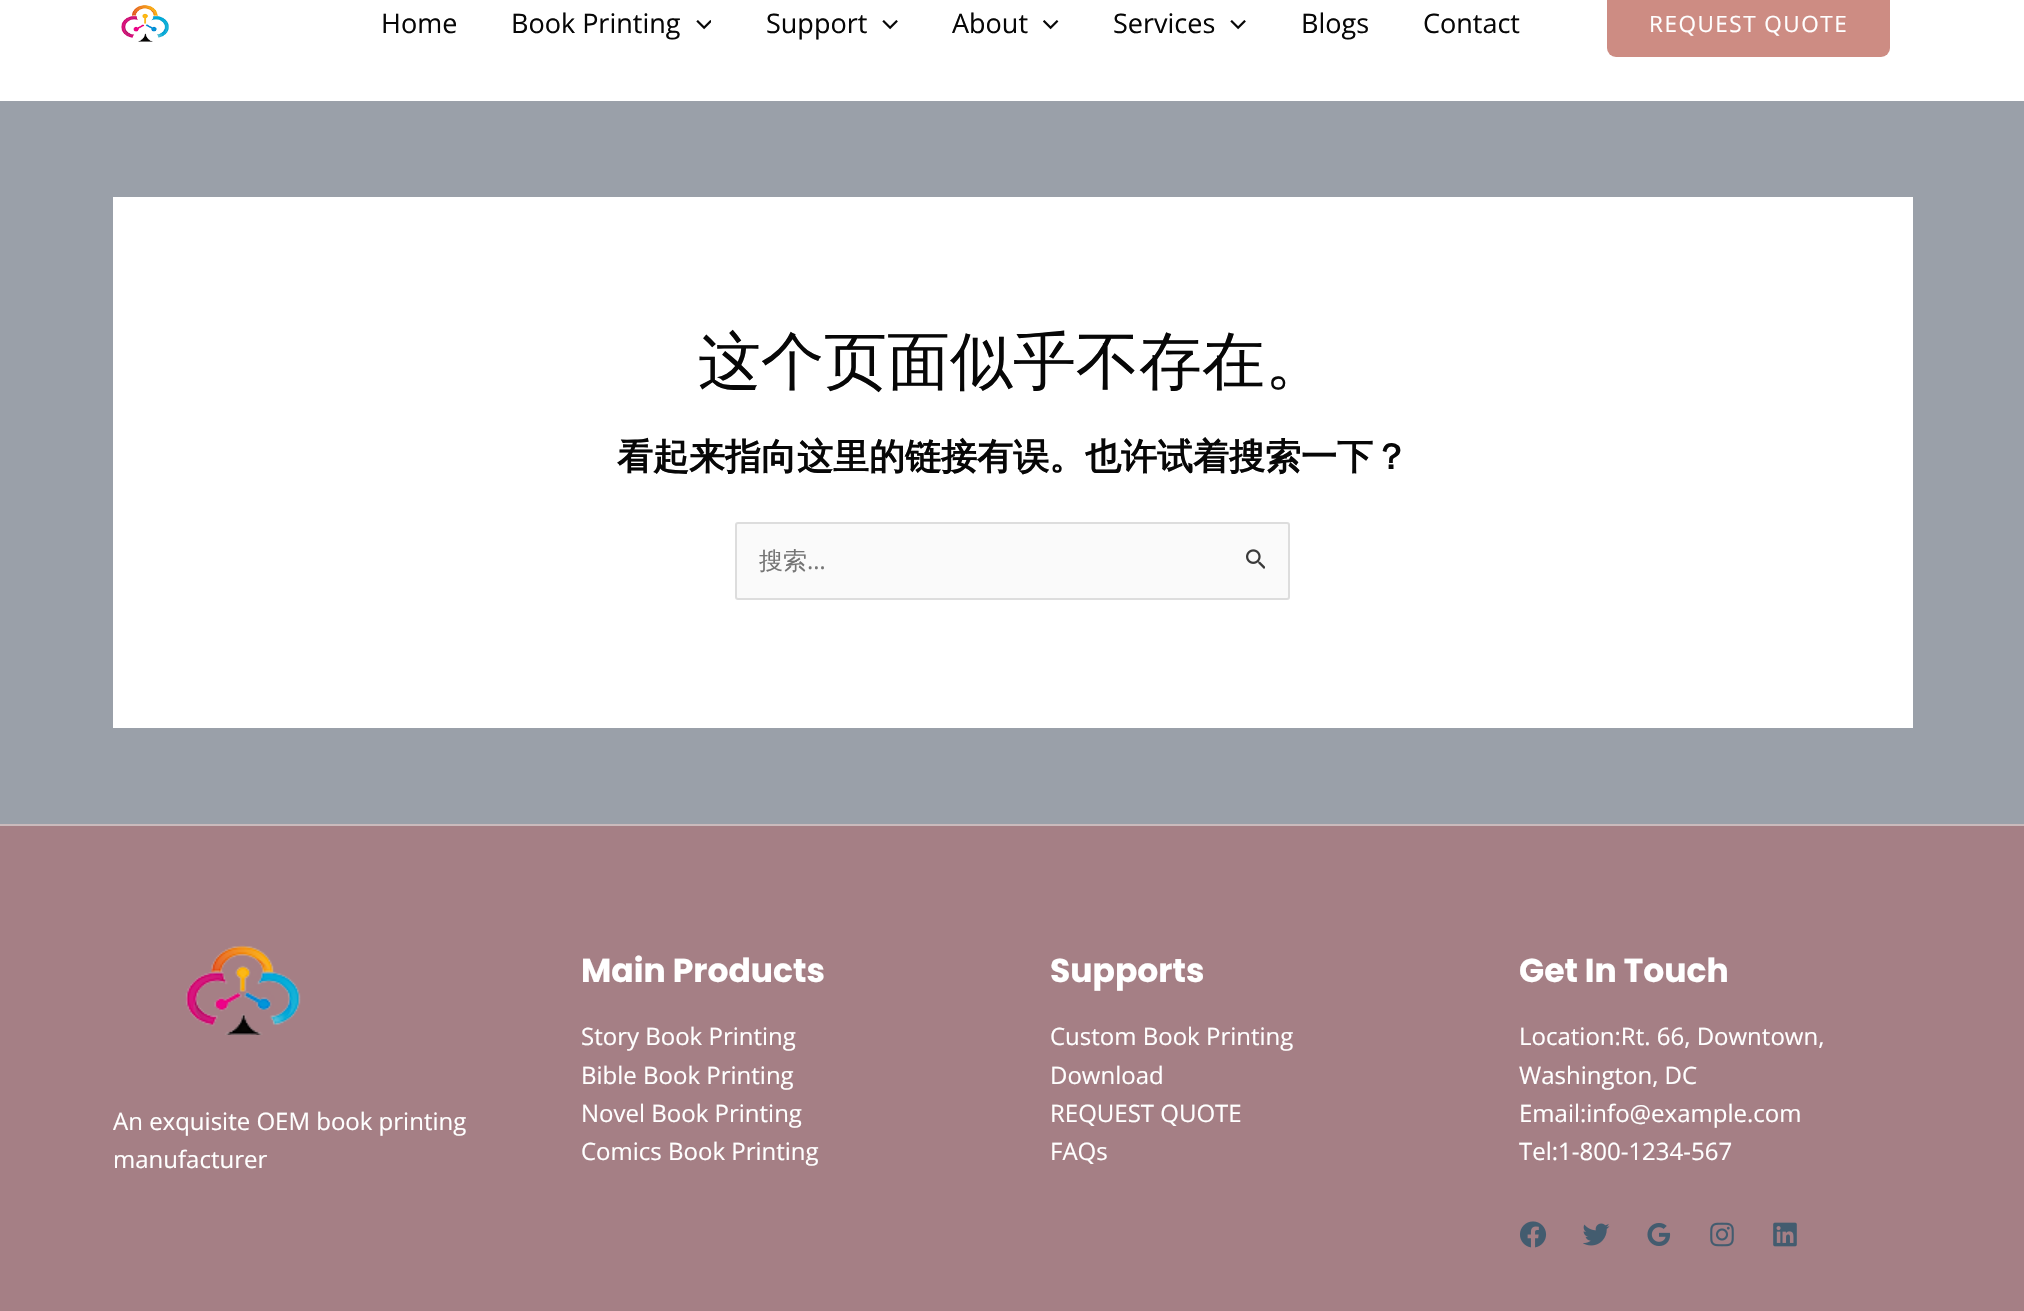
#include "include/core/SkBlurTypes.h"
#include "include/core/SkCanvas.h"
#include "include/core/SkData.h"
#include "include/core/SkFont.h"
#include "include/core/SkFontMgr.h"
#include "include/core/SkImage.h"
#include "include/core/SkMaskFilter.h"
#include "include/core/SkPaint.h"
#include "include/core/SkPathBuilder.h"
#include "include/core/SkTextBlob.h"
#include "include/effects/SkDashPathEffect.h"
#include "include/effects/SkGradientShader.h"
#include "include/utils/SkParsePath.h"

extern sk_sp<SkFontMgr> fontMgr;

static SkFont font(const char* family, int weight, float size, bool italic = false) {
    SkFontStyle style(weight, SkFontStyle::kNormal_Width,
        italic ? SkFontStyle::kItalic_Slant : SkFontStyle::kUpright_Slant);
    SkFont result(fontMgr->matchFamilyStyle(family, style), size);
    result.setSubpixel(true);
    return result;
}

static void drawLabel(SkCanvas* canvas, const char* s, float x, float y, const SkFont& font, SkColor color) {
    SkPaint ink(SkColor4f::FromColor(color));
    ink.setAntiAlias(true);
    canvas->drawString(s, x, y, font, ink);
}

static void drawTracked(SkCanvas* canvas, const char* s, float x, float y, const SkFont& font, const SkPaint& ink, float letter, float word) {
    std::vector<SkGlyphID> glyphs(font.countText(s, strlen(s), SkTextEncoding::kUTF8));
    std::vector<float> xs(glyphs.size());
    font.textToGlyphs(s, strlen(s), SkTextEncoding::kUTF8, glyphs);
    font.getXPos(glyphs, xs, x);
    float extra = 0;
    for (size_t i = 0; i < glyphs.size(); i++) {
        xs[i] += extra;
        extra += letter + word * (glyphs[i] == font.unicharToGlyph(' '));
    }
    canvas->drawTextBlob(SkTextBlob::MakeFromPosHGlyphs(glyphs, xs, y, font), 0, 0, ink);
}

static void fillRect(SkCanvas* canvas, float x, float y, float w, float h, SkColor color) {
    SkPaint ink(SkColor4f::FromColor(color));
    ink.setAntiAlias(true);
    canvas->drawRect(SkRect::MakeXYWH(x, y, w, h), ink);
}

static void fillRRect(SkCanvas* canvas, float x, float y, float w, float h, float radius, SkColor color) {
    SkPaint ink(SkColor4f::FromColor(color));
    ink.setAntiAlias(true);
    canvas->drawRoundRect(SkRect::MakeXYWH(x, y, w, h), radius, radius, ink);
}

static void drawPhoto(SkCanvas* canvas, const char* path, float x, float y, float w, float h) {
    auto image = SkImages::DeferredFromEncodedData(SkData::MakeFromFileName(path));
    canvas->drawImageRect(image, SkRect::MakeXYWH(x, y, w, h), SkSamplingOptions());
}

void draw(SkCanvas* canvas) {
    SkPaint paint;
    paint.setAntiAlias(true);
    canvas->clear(0xFF9AA0A9);
    fillRect(canvas, 0, 0, 2024, 101, 0xFFFFFFFF);
    drawPhoto(canvas, "assets/img1.png", 121, 5, 48, 37);
    SkFont font1 = font("Open Sans", 400, 27);
    drawLabel(canvas, "Home", 381, 33, font1, 0xFF070707);
    drawLabel(canvas, "Book Printing", 511, 33, font1, 0xFF070707);
    drawPhoto(canvas, "assets/img2.png", 696, 20, 15, 10);
    drawLabel(canvas, "Support", 766, 33, font1, 0xFF070707);
    drawPhoto(canvas, "assets/img3.png", 882, 20, 16, 10);
    drawLabel(canvas, "About", 952, 33, font1, 0xFF070707);
    drawPhoto(canvas, "assets/img4.png", 1043, 20, 16, 10);
    drawLabel(canvas, "Services", 1113, 33, font1, 0xFF070707);
    drawPhoto(canvas, "assets/img3.png", 1230, 20, 16, 10);
    drawLabel(canvas, "Blogs", 1301, 33, font1, 0xFF070707);
    drawLabel(canvas, "Contact", 1423, 33, font1, 0xFF070707);
    fillRRect(canvas, 1607, -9, 283, 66, 9, 0xFFCD8C83);
    SkFont font2 = font("Open Sans", 400, 22.5f);
    paint.setColor(0xFFFFFFFF);
    drawTracked(canvas, "REQUEST QUOTE", 1649, 32, font2, paint, 1.5f, 0);
    fillRect(canvas, 113, 197, 1800, 531, 0xFFFFFFFF);
    SkFont font3 = font("WenQuanYi Zen Hei", 500, 63);
    drawLabel(canvas, "这个页面似乎不存在。", 698, 383, font3, 0xFF070707);
    SkFont font4 = font("WenQuanYi Zen Hei", 700, 36);
    drawLabel(canvas, "看起来指向这里的链接有误。也许试着搜索一下？", 617, 469, font4, 0xFF070707);
    paint.setColor(0xFFFAFAFA);
    canvas->drawRoundRect(SkRect::MakeXYWH(736, 523, 553, 76), 2, 2, paint);
    paint.setStroke(true);
    paint.setStrokeWidth(2);
    paint.setColor(0xFFDDDDDD);
    canvas->drawRoundRect(SkRect::MakeXYWH(736, 523, 553, 76), 2, 2, paint);
    SkFont font5 = font("WenQuanYi Zen Hei", 500, 24);
    drawLabel(canvas, "搜索", 759, 569, font5, 0xFF757575);
    SkFont font6 = font("Open Sans", 400, 24);
    drawLabel(canvas, "…", 807, 569, font6, 0xFF757575);
    drawPhoto(canvas, "assets/img5.png", 1246, 549, 19, 20);
    fillRect(canvas, 0, 826, 2024, 485, 0xFFA57F85);
    fillRect(canvas, 0, 824, 2024, 2, 0xFFCABABC);
    drawPhoto(canvas, "assets/img6.png", 185, 945, 116, 90);
    drawLabel(canvas, "An exquisite OEM book printing", 113, 1130, font6, 0xFFFFFFFF);
    drawLabel(canvas, "manufacturer", 113, 1168, font6, 0xFFFFFFFF);
    SkFont font7 = font("Poppins", 700, 33);
    drawLabel(canvas, "Main Products", 581, 982, font7, 0xFFFFFFFF);
    drawLabel(canvas, "Story Book Printing", 581, 1045, font6, 0xFFFFFFFF);
    drawLabel(canvas, "Bible Book Printing", 581, 1084, font6, 0xFFFFFFFF);
    drawLabel(canvas, "Novel Book Printing", 581, 1122, font6, 0xFFFFFFFF);
    drawLabel(canvas, "Comics Book Printing", 581, 1160, font6, 0xFFFFFFFF);
    drawLabel(canvas, "Supports", 1050, 982, font7, 0xFFFFFFFF);
    drawLabel(canvas, "Custom Book Printing", 1050, 1045, font6, 0xFFFFFFFF);
    drawLabel(canvas, "Download", 1050, 1084, font6, 0xFFFFFFFF);
    drawLabel(canvas, "REQUEST QUOTE", 1050, 1122, font6, 0xFFFFFFFF);
    drawLabel(canvas, "FAQs", 1050, 1160, font6, 0xFFFFFFFF);
    drawLabel(canvas, "Get In Touch", 1519, 982, font7, 0xFFFFFFFF);
    drawLabel(canvas, "Location:Rt. 66, Downtown,", 1519, 1045, font6, 0xFFFFFFFF);
    drawLabel(canvas, "Washington, DC", 1519, 1084, font6, 0xFFFFFFFF);
    drawLabel(canvas, "Email:info@example.com", 1519, 1122, font6, 0xFFFFFFFF);
    drawLabel(canvas, "Tel:1-800-1234-567", 1519, 1160, font6, 0xFFFFFFFF);
    drawPhoto(canvas, "assets/img7.png", 1520, 1221, 27, 27);
    drawPhoto(canvas, "assets/img8.png", 1583, 1223, 27, 23);
    drawPhoto(canvas, "assets/img9.png", 1647, 1223, 24, 23);
    drawPhoto(canvas, "assets/img10.png", 1710, 1222, 24, 25);
    drawPhoto(canvas, "assets/img11.png", 1773, 1222, 24, 25);
}
